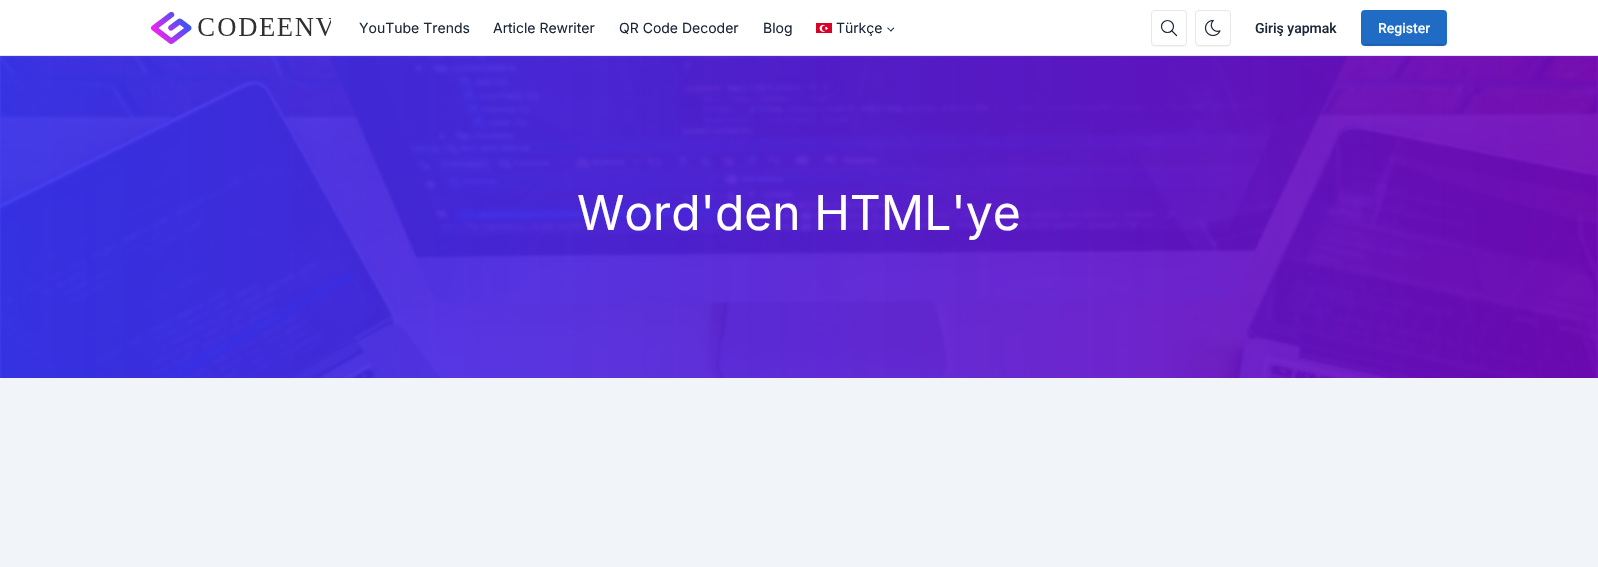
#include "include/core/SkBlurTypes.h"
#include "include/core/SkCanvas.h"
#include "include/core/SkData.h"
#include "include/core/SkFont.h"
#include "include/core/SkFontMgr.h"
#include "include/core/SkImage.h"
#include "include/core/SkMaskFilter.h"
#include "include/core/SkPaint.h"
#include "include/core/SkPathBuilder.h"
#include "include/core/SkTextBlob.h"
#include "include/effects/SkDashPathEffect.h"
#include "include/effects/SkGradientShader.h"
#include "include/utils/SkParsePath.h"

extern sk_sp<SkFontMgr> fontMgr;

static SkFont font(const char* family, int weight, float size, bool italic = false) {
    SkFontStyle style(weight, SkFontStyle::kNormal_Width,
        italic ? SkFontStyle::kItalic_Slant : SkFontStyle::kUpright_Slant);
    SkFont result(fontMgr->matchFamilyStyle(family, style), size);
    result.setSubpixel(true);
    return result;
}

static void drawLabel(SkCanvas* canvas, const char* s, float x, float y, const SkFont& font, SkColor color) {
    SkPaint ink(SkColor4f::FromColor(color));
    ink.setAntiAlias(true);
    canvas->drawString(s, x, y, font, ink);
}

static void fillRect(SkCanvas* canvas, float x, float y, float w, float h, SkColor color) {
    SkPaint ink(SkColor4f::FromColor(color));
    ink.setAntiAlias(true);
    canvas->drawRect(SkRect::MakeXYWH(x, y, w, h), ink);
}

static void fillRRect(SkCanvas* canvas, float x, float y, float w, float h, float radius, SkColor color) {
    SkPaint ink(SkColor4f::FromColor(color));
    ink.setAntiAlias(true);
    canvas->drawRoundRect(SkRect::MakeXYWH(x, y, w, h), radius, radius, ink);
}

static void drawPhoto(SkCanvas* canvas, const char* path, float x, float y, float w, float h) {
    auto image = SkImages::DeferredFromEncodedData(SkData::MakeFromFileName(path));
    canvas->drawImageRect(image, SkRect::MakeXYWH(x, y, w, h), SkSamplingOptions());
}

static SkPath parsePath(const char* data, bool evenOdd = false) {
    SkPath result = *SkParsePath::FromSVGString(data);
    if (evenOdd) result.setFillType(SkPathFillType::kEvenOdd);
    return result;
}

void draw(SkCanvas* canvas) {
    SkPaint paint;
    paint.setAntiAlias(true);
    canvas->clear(0xFFF1F5F9);
    fillRect(canvas, 0, 0, 1598, 55, 0xFFFFFFFF);
    fillRect(canvas, 0, 55, 1598, 1, 0xFFE6E7E9);
    drawPhoto(canvas, "assets/img1.png", 151, 12, 180, 32);
    SkFont font1 = font("Inter", 400, 14);
    drawLabel(canvas, "YouTube Trends", 359, 33, font1, 0xFF1D273B);
    drawLabel(canvas, "Article Rewriter", 493, 33, font1, 0xFF1D273B);
    drawLabel(canvas, "QR Code Decoder", 619, 33, font1, 0xFF1D273B);
    drawLabel(canvas, "Blog", 763, 33, font1, 0xFF1D273B);
    drawPhoto(canvas, "assets/img2.png", 816, 23, 16, 10);
    drawLabel(canvas, "Türkçe", 836, 33, font1, 0xFF1D273B);
    paint.setColor(0xFF1D273B);
    canvas->drawPath(parsePath("M890 31L893.5 27.5L894.5 28L891 31.5Z"), paint);
    canvas->drawPath(parsePath("M887 28L888 27.5L891.5 31L891 31.5Z"), paint);
    paint.setColor(0xFFF6F6F7);
    canvas->drawPath(parsePath("M1151 42C1151 48 1155 47 1159.5 47H1178.5C1183 47 1187 48 1187 42C1187 44 1185 46 1183 46H1155C1153 46 1151 44 1151 42Z"), paint);
    paint.setStroke(true);
    paint.setStrokeWidth(1);
    paint.setColor(0xFFE6E7E9);
    canvas->drawRoundRect(SkRect::MakeXYWH(1151.5f, 10.5f, 35, 35), 3.5f, 3.5f, paint);
    paint.setStrokeWidth(1.2f);
    paint.setColor(0xFF1D273B);
    canvas->drawCircle(1167.5f, 26.5f, 6, paint);
    paint.setStrokeCap(SkPaint::kRound_Cap);
    paint.setStrokeJoin(SkPaint::kRound_Join);
    canvas->drawPath(parsePath("M1176.5 35.5L1171.5 30.5"), paint);
    paint.setStroke(false);
    paint.setColor(0xFFF6F6F7);
    canvas->drawPath(parsePath("M1195 42C1195 48 1199 47 1203.5 47H1222.5C1227 47 1231 48 1231 42C1231 44 1229 46 1227 46H1199C1197 46 1195 44 1195 42Z"), paint);
    paint.setStroke(true);
    paint.setStrokeWidth(1);
    paint.setStrokeCap(SkPaint::kButt_Cap);
    paint.setStrokeJoin(SkPaint::kMiter_Join);
    paint.setColor(0xFFE6E7E9);
    canvas->drawRoundRect(SkRect::MakeXYWH(1195.5f, 10.5f, 35, 35), 3.5f, 3.5f, paint);
    drawPhoto(canvas, "assets/img3.png", 1204, 19, 17, 18);
    SkFont font2 = font("Roboto", 500, 14);
    drawLabel(canvas, "Giriş yapmak", 1255, 33, font2, 0xFF1D273B);
    paint.setStroke(false);
    paint.setColor(0xFFF6F6F7);
    canvas->drawPath(parsePath("M1361 42C1361 50 1373 47 1378 47H1430C1435 47 1447 50 1447 42C1447 44 1445 46 1443 46H1365C1363 46 1361 44 1361 42Z"), paint);
    fillRRect(canvas, 1361, 10, 86, 36, 4, 0xFF206BC4);
    paint.setColor(0xFF1F5DA9);
    canvas->drawPath(parsePath("M1362 41C1362 48 1374 45 1378 45H1430C1434 45 1446 48 1446 41C1446 43 1445 44 1443 44H1365C1363 44 1362 43 1362 41Z"), paint);
    drawLabel(canvas, "Register", 1378, 33, font2, 0xFFF8FAFC);
    fillRect(canvas, 0, 56, 1598, 322, 0xFFF8FAFC);
    drawPhoto(canvas, "assets/img4.png", 0, 56, 1598, 322);
    {
        const SkColor colors[] = {0xE67004BC, 0xE63632F5};
        const float stops[] = {0, 1};
        const SkPoint ends[] = {{1598, 217}, {0, 217}};
        paint.setShader(SkGradientShader::MakeLinear(ends, colors, stops, 2, SkTileMode::kClamp));
        paint.setAlpha(255);
    }
    canvas->drawRect(SkRect::MakeXYWH(0, 56, 1598, 322), paint);
    SkFont font3 = font("Inter", 400, 48);
    drawLabel(canvas, "Word'den HTML'ye", 577, 230, font3, 0xFFFFFFFF);
}
